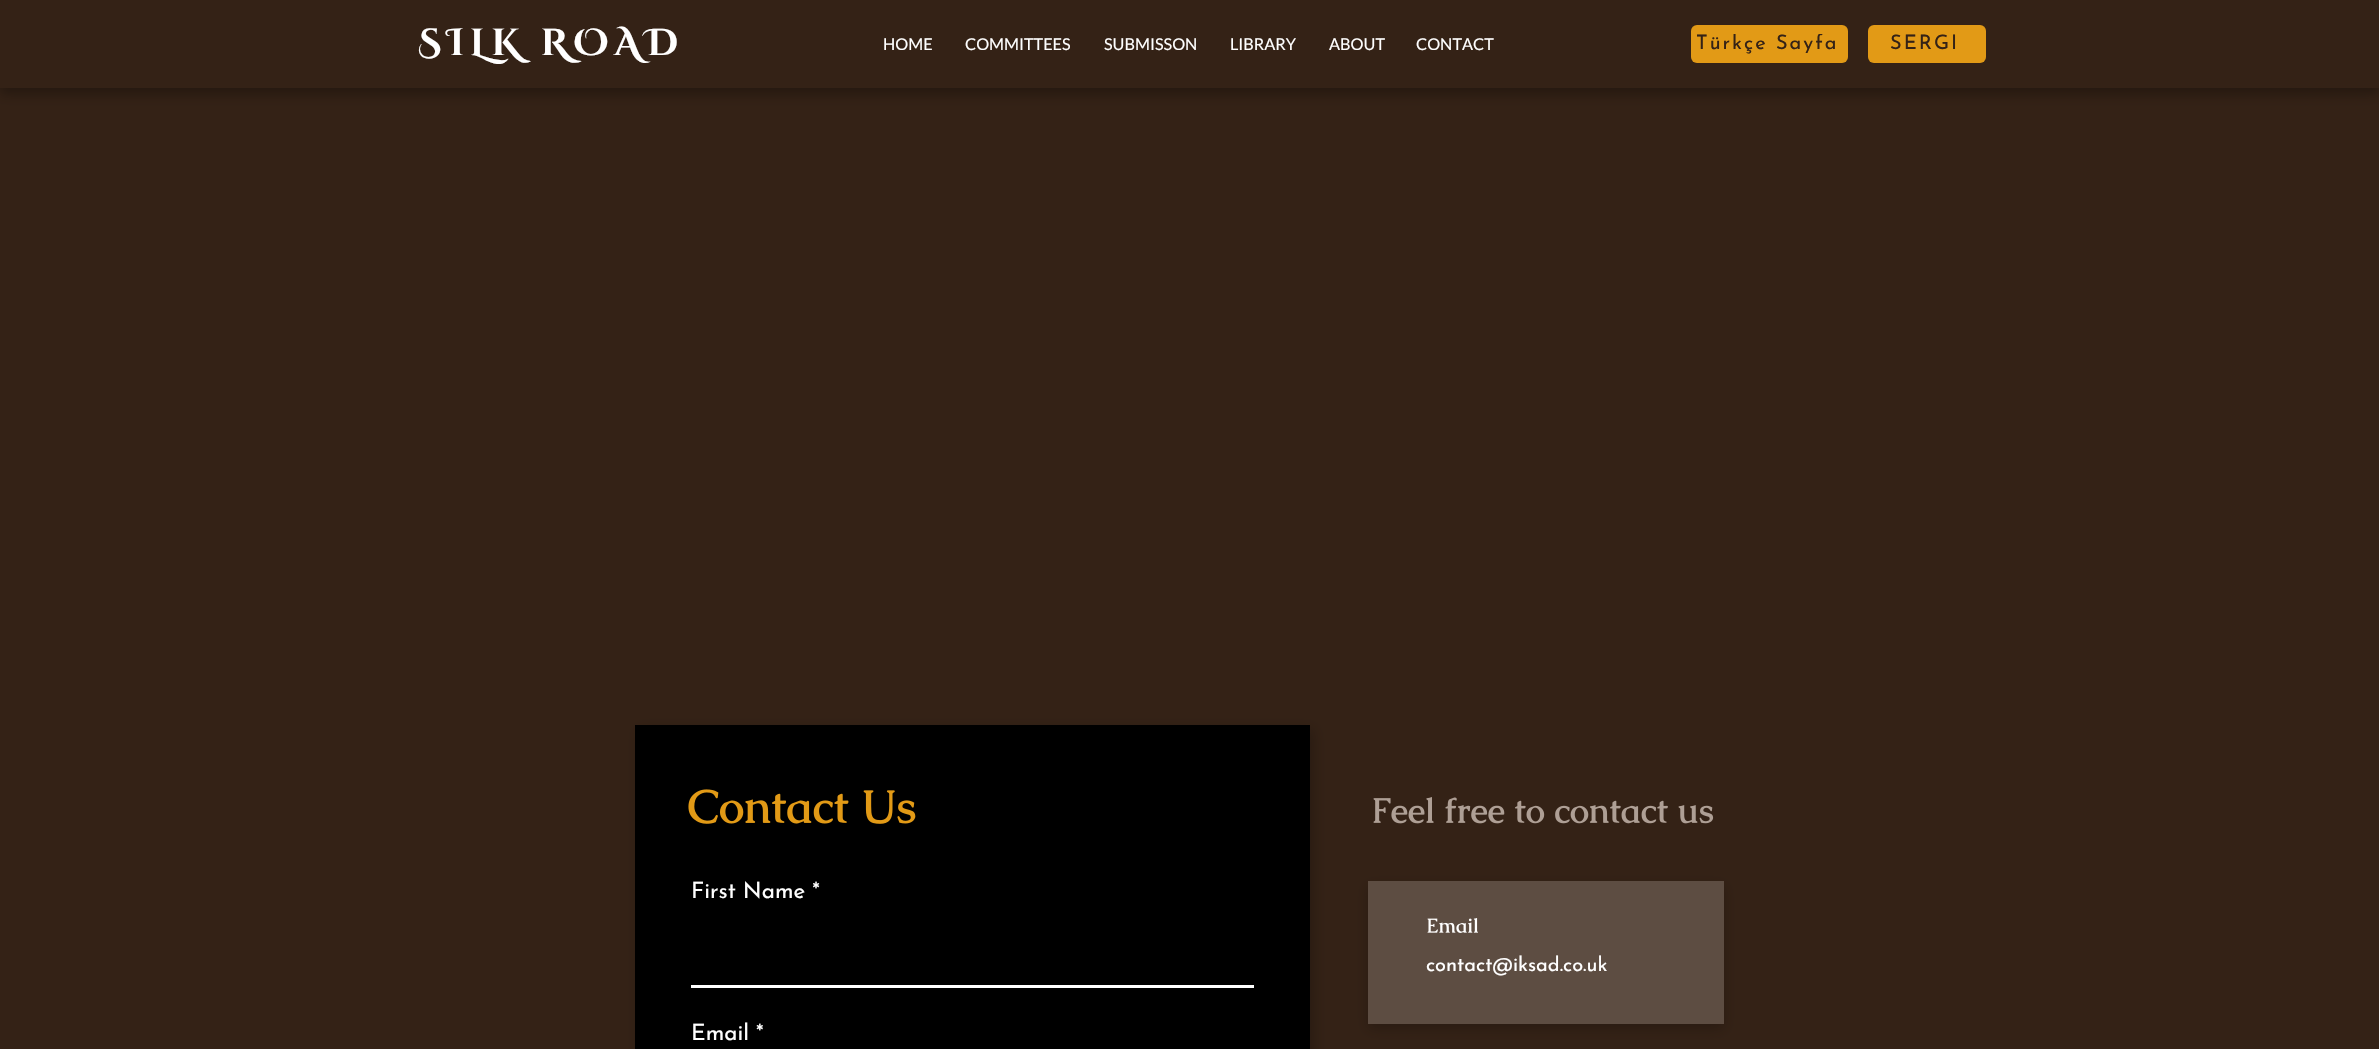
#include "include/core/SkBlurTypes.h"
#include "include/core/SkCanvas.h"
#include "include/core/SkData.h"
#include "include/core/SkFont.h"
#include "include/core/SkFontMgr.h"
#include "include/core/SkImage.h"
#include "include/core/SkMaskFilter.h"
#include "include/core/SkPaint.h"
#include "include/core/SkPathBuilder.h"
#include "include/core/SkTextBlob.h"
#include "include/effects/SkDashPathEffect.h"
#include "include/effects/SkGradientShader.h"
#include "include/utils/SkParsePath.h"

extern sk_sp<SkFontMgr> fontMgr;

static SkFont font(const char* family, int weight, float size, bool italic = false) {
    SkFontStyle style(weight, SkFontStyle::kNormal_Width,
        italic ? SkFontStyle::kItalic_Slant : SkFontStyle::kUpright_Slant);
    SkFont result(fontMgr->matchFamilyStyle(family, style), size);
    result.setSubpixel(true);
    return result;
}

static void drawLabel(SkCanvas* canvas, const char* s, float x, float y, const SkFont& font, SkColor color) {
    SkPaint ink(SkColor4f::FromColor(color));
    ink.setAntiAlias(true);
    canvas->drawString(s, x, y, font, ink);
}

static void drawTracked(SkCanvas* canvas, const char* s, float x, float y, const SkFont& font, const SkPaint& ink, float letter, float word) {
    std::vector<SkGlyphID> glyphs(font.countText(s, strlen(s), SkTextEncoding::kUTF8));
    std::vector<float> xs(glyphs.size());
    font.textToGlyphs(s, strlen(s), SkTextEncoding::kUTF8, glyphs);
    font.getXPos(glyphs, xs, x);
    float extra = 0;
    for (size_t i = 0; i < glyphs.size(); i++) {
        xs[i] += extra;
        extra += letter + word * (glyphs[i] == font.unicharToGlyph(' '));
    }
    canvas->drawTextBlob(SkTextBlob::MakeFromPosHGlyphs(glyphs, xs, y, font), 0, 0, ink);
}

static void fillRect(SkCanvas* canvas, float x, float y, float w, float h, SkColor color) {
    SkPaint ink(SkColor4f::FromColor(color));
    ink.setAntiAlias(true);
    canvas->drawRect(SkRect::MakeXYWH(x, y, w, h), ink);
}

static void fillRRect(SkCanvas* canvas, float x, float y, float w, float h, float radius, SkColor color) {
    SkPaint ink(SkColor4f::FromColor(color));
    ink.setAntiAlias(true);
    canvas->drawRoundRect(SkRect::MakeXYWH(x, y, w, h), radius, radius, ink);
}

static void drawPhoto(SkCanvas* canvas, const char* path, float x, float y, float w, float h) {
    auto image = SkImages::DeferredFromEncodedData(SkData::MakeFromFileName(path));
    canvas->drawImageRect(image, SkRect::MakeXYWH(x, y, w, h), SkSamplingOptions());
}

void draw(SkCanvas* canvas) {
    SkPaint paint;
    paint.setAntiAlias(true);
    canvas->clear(0xFF342216);
    paint.setColor(0x4D000000);
    paint.setMaskFilter(SkMaskFilter::MakeBlur(kNormal_SkBlurStyle, 6));
    canvas->drawRect(SkRect::MakeXYWH(0, 6, 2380, 88), paint);
    paint.setMaskFilter(nullptr);
    fillRect(canvas, 0, 0, 2379, 88, 0xFF342216);
    SkFont font1 = font("Cinzel Decorative", 700, 37.5f);
    paint.setColor(0xFFFFFFFF);
    drawTracked(canvas, "SILK ROAD", 418, 55, font1, paint, 5.6f, 0);
    SkFont font2 = font("Lato", 400, 16.25f);
    drawLabel(canvas, "HOME", 883, 50, font2, 0xFFFFFFFF);
    drawLabel(canvas, "COMMITTEES", 965, 50, font2, 0xFFFFFFFF);
    drawLabel(canvas, "SUBMISSON", 1104, 50, font2, 0xFFFFFFFF);
    drawLabel(canvas, "LIBRARY", 1230, 50, font2, 0xFFFFFFFF);
    drawLabel(canvas, "ABOUT", 1329, 50, font2, 0xFFFFFFFF);
    drawLabel(canvas, "CONTACT", 1416, 50, font2, 0xFFFFFFFF);
    fillRRect(canvas, 1691, 25, 157, 38, 6, 0xFFE29A16);
    canvas->save();
    canvas->clipRect(SkRect::MakeXYWH(1695, 34, 144, 20));
    SkFont font3 = font("Josefin Sans", 400, 20);
    paint.setColor(0xFF342216);
    drawTracked(canvas, "Türkçe Sayfa", 1696, 49, font3, paint, 2, 0);
    canvas->restore();
    fillRRect(canvas, 1868, 25, 118, 38, 6, 0xFFE29A16);
    canvas->save();
    canvas->clipRect(SkRect::MakeXYWH(1890, 34, 69, 20));
    drawTracked(canvas, "SERGİ", 1890, 49, font3, paint, 2, 0);
    canvas->restore();
    drawPhoto(canvas, "assets/img1.png", 1373, 797, 341, 27);
    paint.setColor(0x33000000);
    paint.setMaskFilter(SkMaskFilter::MakeBlur(kNormal_SkBlurStyle, 6));
    canvas->drawRect(SkRect::MakeXYWH(639, 729, 675, 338), paint);
    paint.setMaskFilter(nullptr);
    fillRect(canvas, 635, 725, 675, 324, 0xFF000000);
    drawPhoto(canvas, "assets/img2.png", 688, 789, 228, 35);
    SkFont font4 = font("Josefin Sans", 400, 22.5f);
    drawLabel(canvas, "First Name *", 691, 898, font4, 0xFFFFFFFF);
    fillRect(canvas, 691, 985, 563, 3, 0xFFFFFFFF);
    drawLabel(canvas, "Email *", 691, 1040, font4, 0xFFFFFFFF);
    paint.setMaskFilter(SkMaskFilter::MakeBlur(kNormal_SkBlurStyle, 6));
    canvas->drawRect(SkRect::MakeXYWH(1368, 886, 356, 143), paint);
    paint.setMaskFilter(nullptr);
    fillRect(canvas, 1368, 881, 356, 143, 0xFF5D4D42);
    drawPhoto(canvas, "assets/img3.png", 1427, 918, 51, 15);
    drawLabel(canvas, "contact@iksad.co.uk", 1426, 971, font3, 0xFFFFFFFF);
}
